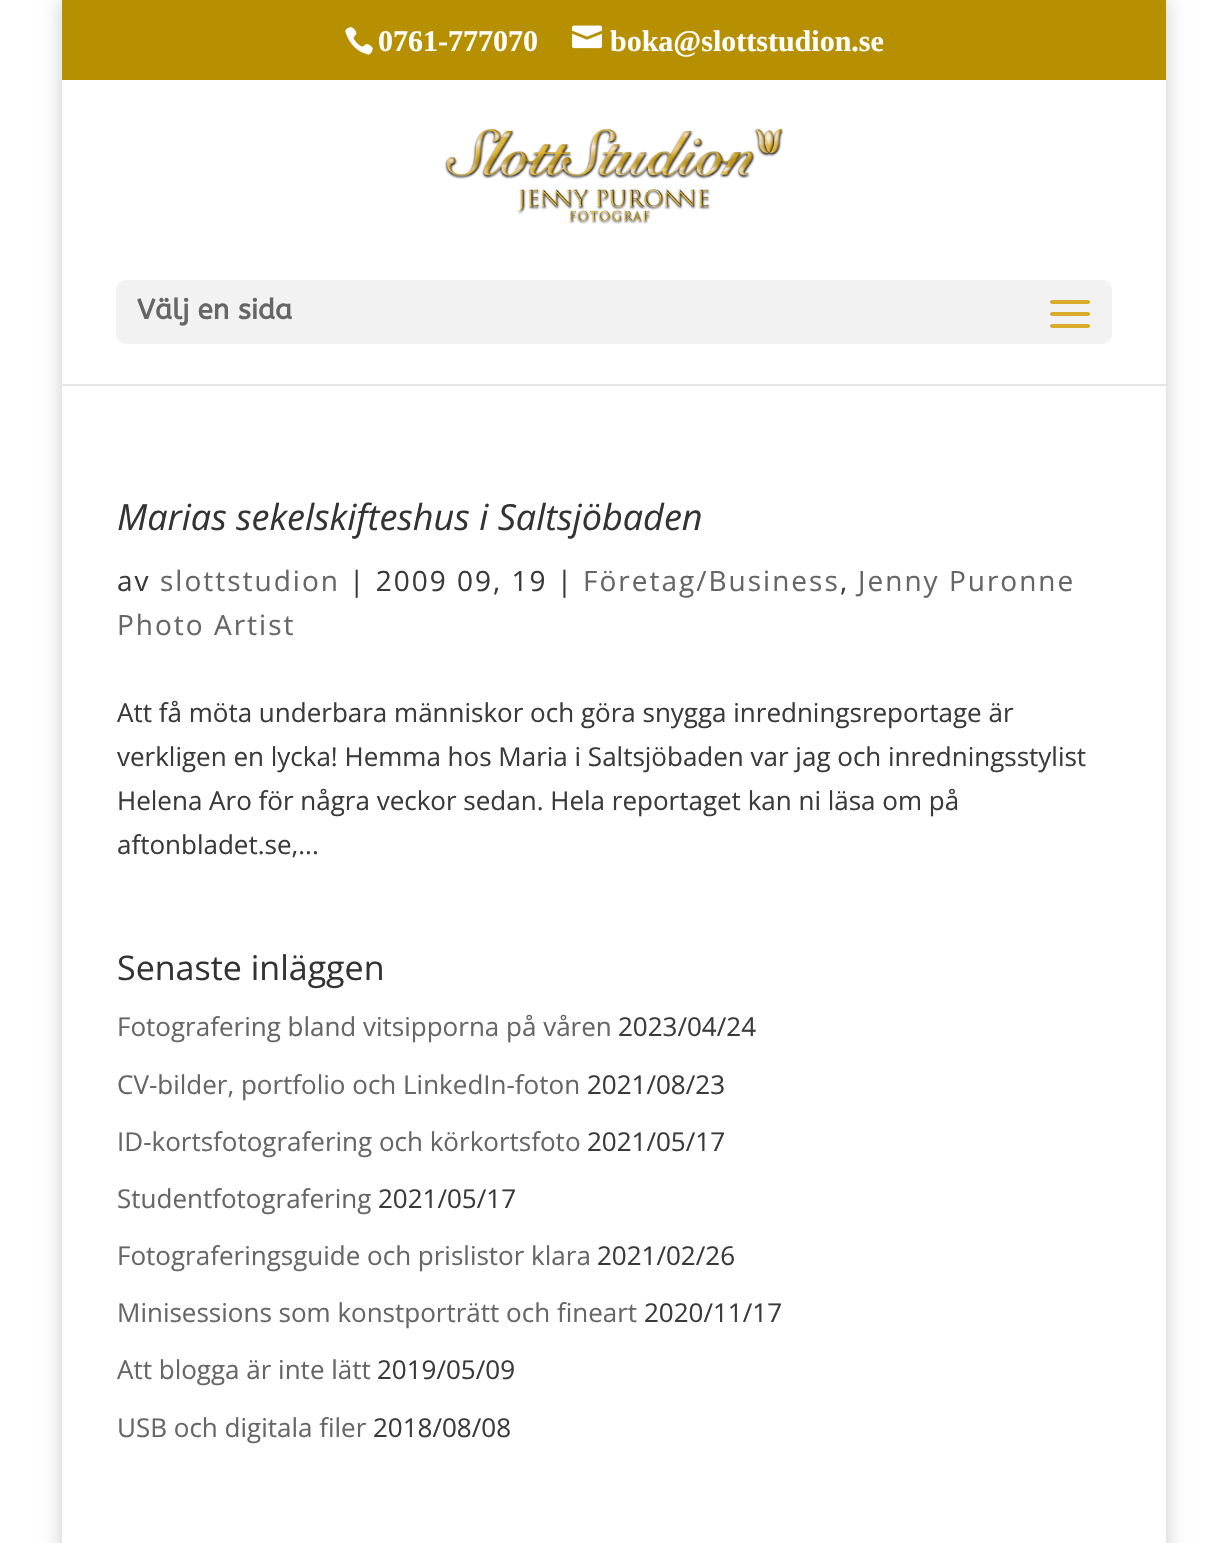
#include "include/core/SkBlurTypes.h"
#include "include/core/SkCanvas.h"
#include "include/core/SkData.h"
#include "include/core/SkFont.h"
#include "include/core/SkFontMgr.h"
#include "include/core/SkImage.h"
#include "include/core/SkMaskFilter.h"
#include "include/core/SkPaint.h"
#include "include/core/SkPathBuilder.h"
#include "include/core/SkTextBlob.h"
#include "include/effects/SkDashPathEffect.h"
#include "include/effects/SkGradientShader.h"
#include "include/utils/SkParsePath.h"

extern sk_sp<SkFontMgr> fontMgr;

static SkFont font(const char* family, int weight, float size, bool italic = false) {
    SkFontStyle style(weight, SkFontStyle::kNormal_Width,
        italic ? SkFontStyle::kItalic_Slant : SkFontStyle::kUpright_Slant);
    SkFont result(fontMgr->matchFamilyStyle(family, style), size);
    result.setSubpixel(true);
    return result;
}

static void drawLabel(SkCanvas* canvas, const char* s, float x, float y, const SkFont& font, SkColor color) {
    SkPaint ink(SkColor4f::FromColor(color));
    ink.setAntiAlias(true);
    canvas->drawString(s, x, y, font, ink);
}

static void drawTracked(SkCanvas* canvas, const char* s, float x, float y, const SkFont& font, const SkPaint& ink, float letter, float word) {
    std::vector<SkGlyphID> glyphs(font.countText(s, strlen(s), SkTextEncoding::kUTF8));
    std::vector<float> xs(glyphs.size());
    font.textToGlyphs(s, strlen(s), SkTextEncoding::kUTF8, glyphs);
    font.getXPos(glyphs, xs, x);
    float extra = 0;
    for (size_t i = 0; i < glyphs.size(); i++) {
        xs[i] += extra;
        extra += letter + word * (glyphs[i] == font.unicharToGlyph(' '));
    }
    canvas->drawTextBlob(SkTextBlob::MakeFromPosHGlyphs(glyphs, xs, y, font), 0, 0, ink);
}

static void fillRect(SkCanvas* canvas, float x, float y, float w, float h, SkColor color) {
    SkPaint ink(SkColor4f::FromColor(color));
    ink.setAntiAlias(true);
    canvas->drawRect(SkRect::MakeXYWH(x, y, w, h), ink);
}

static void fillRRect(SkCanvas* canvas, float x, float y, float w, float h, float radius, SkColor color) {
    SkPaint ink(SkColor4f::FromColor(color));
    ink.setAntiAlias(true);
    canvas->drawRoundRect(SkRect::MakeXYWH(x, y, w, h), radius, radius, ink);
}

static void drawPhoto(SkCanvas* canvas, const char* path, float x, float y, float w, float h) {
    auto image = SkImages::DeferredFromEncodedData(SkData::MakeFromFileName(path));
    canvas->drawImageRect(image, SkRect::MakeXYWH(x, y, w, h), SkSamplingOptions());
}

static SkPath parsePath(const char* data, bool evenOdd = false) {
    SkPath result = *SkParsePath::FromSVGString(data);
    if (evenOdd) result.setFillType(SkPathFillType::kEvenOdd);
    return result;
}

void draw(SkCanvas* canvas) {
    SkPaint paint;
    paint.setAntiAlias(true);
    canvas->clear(0xFFFFFFFF);
    canvas->save();
    canvas->clipPath(parsePath("M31 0H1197V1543H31ZM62 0H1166V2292H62Z", true), true);
    paint.setColor(0x33000000);
    paint.setMaskFilter(SkMaskFilter::MakeBlur(kNormal_SkBlurStyle, 10));
    canvas->drawRect(SkRect::MakeXYWH(62, 0, 1104, 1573), paint);
    paint.setMaskFilter(nullptr);
    canvas->restore();
    fillRect(canvas, 62, 0, 1104, 80, 0xFFB79001);
    drawPhoto(canvas, "assets/img1.png", 345, 27, 28, 28);
    SkFont font1 = font("Liberation Serif", 700, 30);
    drawLabel(canvas, "0761-777070", 378, 51, font1, 0xFFFFFFFF);
    drawPhoto(canvas, "assets/img2.png", 572, 25, 30, 24);
    drawLabel(canvas, "boka@slottstudion.se", 610, 51, font1, 0xFFFFFFFF);
    fillRect(canvas, 62, 384, 1104, 2, 0xFFE6E6E6);
    drawPhoto(canvas, "assets/img3.png", 444, 128, 340, 96);
    fillRRect(canvas, 116, 280, 996, 64, 10, 0xFFF2F2F2);
    SkFont font2 = font("ABeeZee", 700, 28);
    drawLabel(canvas, "Välj en sida", 137, 319, font2, 0xFF666666);
    drawPhoto(canvas, "assets/img4.png", 1050, 300, 40, 28);
    SkFont font3 = font("Open Sans", 400, 36, true);
    drawLabel(canvas, "Marias sekelskifteshus i Saltsjöbaden", 117, 530, font3, 0xFF333333);
    SkFont font4 = font("Open Sans", 400, 28);
    paint.setColor(0xFF3A3A3A);
    drawTracked(canvas, "av", 117, 591, font4, paint, 2, 0);
    paint.setColor(0xFF666666);
    drawTracked(canvas, "slottstudion", 160, 591, font4, paint, 2, 0);
    paint.setColor(0xFF3A3A3A);
    drawTracked(canvas, "| 2009 09, 19 |", 349, 591, font4, paint, 2, 0);
    paint.setColor(0xFF666666);
    drawTracked(canvas, "Företag/Business", 583, 591, font4, paint, 2, 0);
    paint.setColor(0xFF3A3A3A);
    drawTracked(canvas, ",", 840, 591, font4, paint, 2, 0);
    paint.setColor(0xFF666666);
    drawTracked(canvas, "Jenny Puronne", 858, 591, font4, paint, 2, 0);
    drawTracked(canvas, "Photo Artist", 117, 635, font4, paint, 2, 0);
    SkFont font5 = font("Open Sans", 400, 26);
    drawLabel(canvas, "Att få möta underbara människor och göra snygga inredningsreportage är", 117, 722, font5, 0xFF3A3A3A);
    drawLabel(canvas, "verkligen en lycka! Hemma hos Maria i Saltsjöbaden var jag och inredningsstylist", 117, 766, font5, 0xFF3A3A3A);
    drawLabel(canvas, "Helena Aro för några veckor sedan. Hela reportaget kan ni läsa om på", 117, 810, font5, 0xFF3A3A3A);
    drawLabel(canvas, "aftonbladet.se,...", 117, 854, font5, 0xFF3A3A3A);
    SkFont font6 = font("Open Sans", 400, 34);
    drawLabel(canvas, "Senaste inläggen", 117, 980, font6, 0xFF333333);
    drawLabel(canvas, "Fotografering bland vitsipporna på våren", 117, 1036, font5, 0xFF666666);
    drawLabel(canvas, "2023/04/24", 618, 1036, font5, 0xFF3A3A3A);
    drawLabel(canvas, "CV-bilder, portfolio och LinkedIn-foton", 117, 1094, font5, 0xFF666666);
    drawLabel(canvas, "2021/08/23", 587, 1094, font5, 0xFF3A3A3A);
    drawLabel(canvas, "ID-kortsfotografering och körkortsfoto", 117, 1151, font5, 0xFF666666);
    drawLabel(canvas, "2021/05/17", 587, 1151, font5, 0xFF3A3A3A);
    drawLabel(canvas, "Studentfotografering", 117, 1208, font5, 0xFF666666);
    drawLabel(canvas, "2021/05/17", 378, 1208, font5, 0xFF3A3A3A);
    drawLabel(canvas, "Fotograferingsguide och prislistor klara", 117, 1265, font5, 0xFF666666);
    drawLabel(canvas, "2021/02/26", 597, 1265, font5, 0xFF3A3A3A);
    drawLabel(canvas, "Minisessions som konstporträtt och fineart", 117, 1322, font5, 0xFF666666);
    drawLabel(canvas, "2020/11/17", 644, 1322, font5, 0xFF3A3A3A);
    drawLabel(canvas, "Att blogga är inte lätt", 117, 1379, font5, 0xFF666666);
    drawLabel(canvas, "2019/05/09", 377, 1379, font5, 0xFF3A3A3A);
    drawLabel(canvas, "USB och digitala filer", 117, 1437, font5, 0xFF666666);
    drawLabel(canvas, "2018/08/08", 373, 1437, font5, 0xFF3A3A3A);
}
